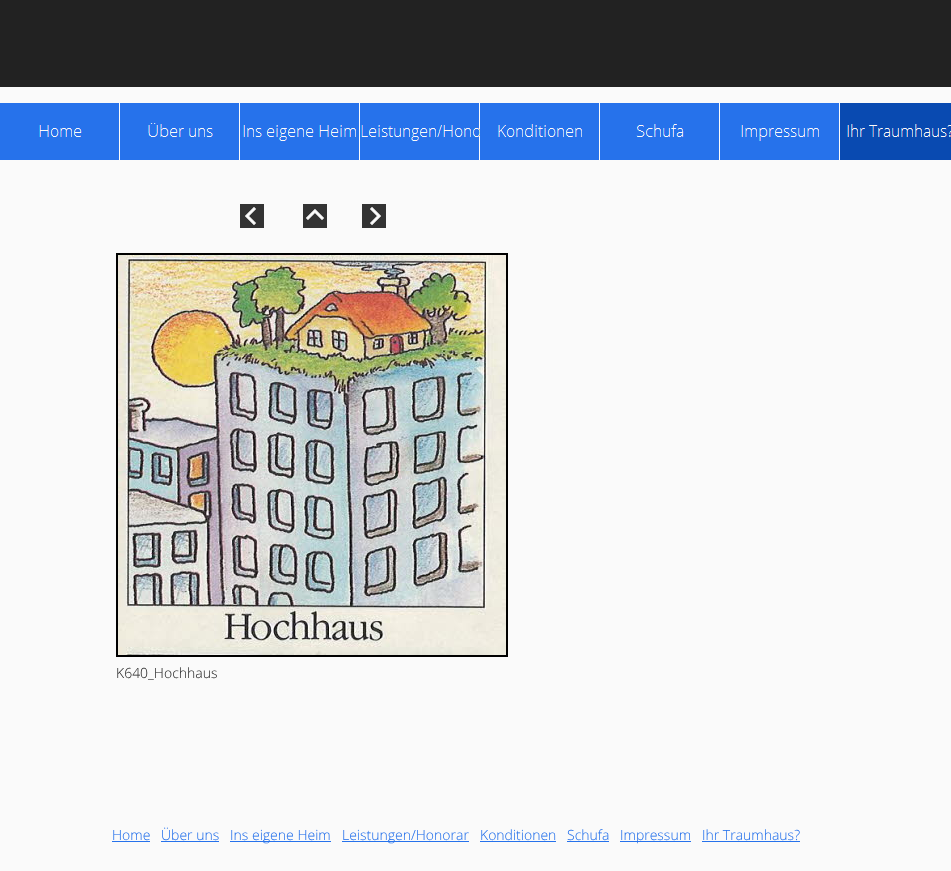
#include "include/core/SkBlurTypes.h"
#include "include/core/SkCanvas.h"
#include "include/core/SkData.h"
#include "include/core/SkFont.h"
#include "include/core/SkFontMgr.h"
#include "include/core/SkImage.h"
#include "include/core/SkMaskFilter.h"
#include "include/core/SkPaint.h"
#include "include/core/SkPathBuilder.h"
#include "include/core/SkTextBlob.h"
#include "include/effects/SkDashPathEffect.h"
#include "include/effects/SkGradientShader.h"
#include "include/utils/SkParsePath.h"

extern sk_sp<SkFontMgr> fontMgr;

static SkFont font(const char* family, int weight, float size, bool italic = false) {
    SkFontStyle style(weight, SkFontStyle::kNormal_Width,
        italic ? SkFontStyle::kItalic_Slant : SkFontStyle::kUpright_Slant);
    SkFont result(fontMgr->matchFamilyStyle(family, style), size);
    result.setSubpixel(true);
    return result;
}

static void drawLabel(SkCanvas* canvas, const char* s, float x, float y, const SkFont& font, SkColor color) {
    SkPaint ink(SkColor4f::FromColor(color));
    ink.setAntiAlias(true);
    canvas->drawString(s, x, y, font, ink);
}

static void fillRect(SkCanvas* canvas, float x, float y, float w, float h, SkColor color) {
    SkPaint ink(SkColor4f::FromColor(color));
    ink.setAntiAlias(true);
    canvas->drawRect(SkRect::MakeXYWH(x, y, w, h), ink);
}

static void drawPhoto(SkCanvas* canvas, const char* path, float x, float y, float w, float h) {
    auto image = SkImages::DeferredFromEncodedData(SkData::MakeFromFileName(path));
    canvas->drawImageRect(image, SkRect::MakeXYWH(x, y, w, h), SkSamplingOptions());
}

void draw(SkCanvas* canvas) {
    SkPaint paint;
    paint.setAntiAlias(true);
    canvas->clear(0xFFFAFAFA);
    fillRect(canvas, 0, 0, 951, 87, 0xFF222222);
    drawPhoto(canvas, "assets/img1.png", 0, 103, 119, 57);
    drawPhoto(canvas, "assets/img2.png", 120, 103, 119, 57);
    drawPhoto(canvas, "assets/img3.png", 240, 103, 119, 57);
    drawPhoto(canvas, "assets/img4.png", 360, 103, 120, 57);
    drawPhoto(canvas, "assets/img5.png", 480, 103, 119, 57);
    drawPhoto(canvas, "assets/img6.png", 600, 103, 119, 57);
    drawPhoto(canvas, "assets/img7.png", 720, 103, 119, 57);
    drawPhoto(canvas, "assets/img8.png", 840, 103, 111, 57);
    drawPhoto(canvas, "assets/img9.png", 240, 204, 24, 24);
    drawPhoto(canvas, "assets/img10.png", 303, 204, 24, 24);
    drawPhoto(canvas, "assets/img11.png", 362, 204, 24, 24);
    paint.setStroke(true);
    paint.setStrokeWidth(1);
    paint.setColor(0xFF000000);
    canvas->drawRect(SkRect::MakeXYWH(116.5f, 253.5f, 391, 403), paint);
    canvas->drawRect(SkRect::MakeXYWH(117.5f, 254.5f, 389, 401), paint);
    drawPhoto(canvas, "assets/img12.png", 118, 255, 388, 400);
    SkFont font1 = font("Open Sans", 300, 14);
    drawLabel(canvas, "K640_Hochhaus", 116, 678, font1, 0xFF333333);
    drawLabel(canvas, "Home", 112, 840, font1, 0xFF2672EC);
    fillRect(canvas, 112, 841, 38, 1, 0xFF2672EC);
    drawLabel(canvas, "Über uns", 161, 840, font1, 0xFF2672EC);
    fillRect(canvas, 161, 841, 58, 1, 0xFF2672EC);
    fillRect(canvas, 230, 841, 101, 1, 0xFF2672EC);
    drawLabel(canvas, "Ins eigene Heim", 230, 840, font1, 0xFF2672EC);
    fillRect(canvas, 342, 841, 127, 1, 0xFF2672EC);
    drawLabel(canvas, "Leistungen/Honorar", 342, 840, font1, 0xFF2672EC);
    drawLabel(canvas, "Konditionen", 480, 840, font1, 0xFF2672EC);
    fillRect(canvas, 480, 841, 76, 1, 0xFF2672EC);
    drawLabel(canvas, "Schufa", 567, 840, font1, 0xFF2672EC);
    fillRect(canvas, 567, 841, 42, 1, 0xFF2672EC);
    fillRect(canvas, 620, 841, 71, 1, 0xFF2672EC);
    drawLabel(canvas, "Impressum", 620, 840, font1, 0xFF2672EC);
    drawLabel(canvas, "Ihr Traumhaus?", 702, 840, font1, 0xFF2672EC);
    fillRect(canvas, 702, 841, 98, 1, 0xFF2672EC);
}
